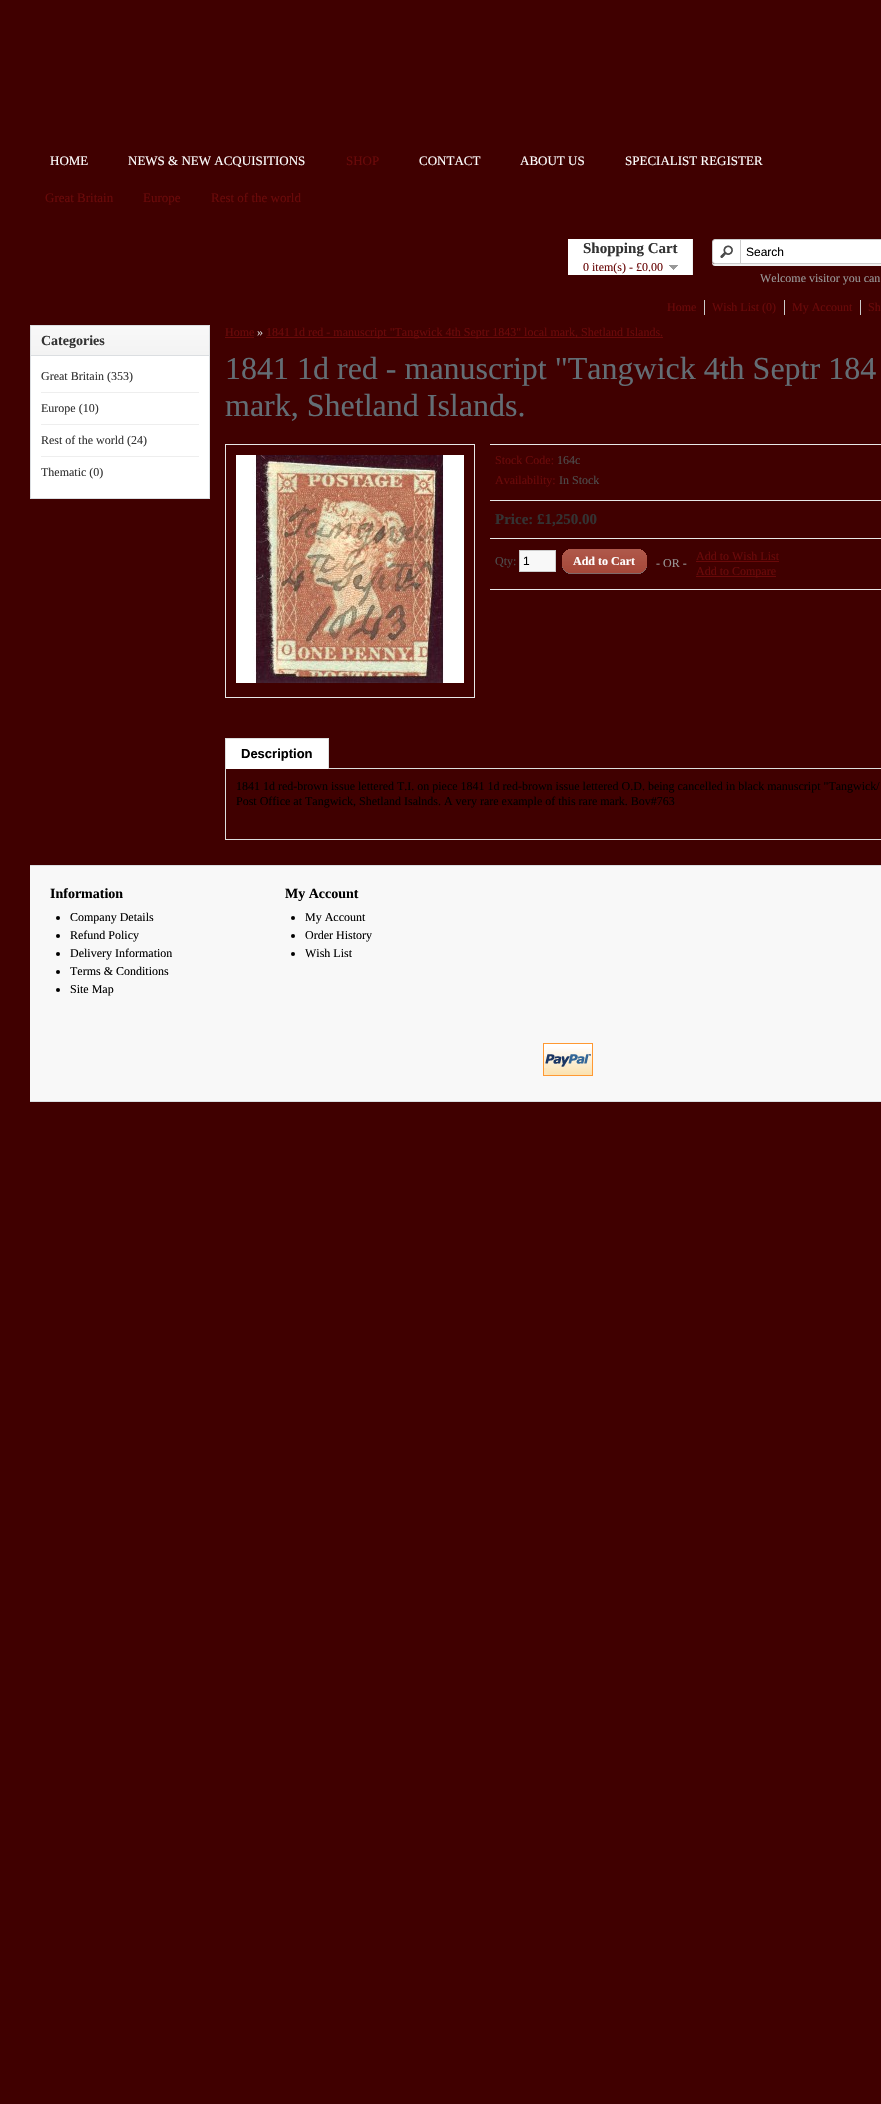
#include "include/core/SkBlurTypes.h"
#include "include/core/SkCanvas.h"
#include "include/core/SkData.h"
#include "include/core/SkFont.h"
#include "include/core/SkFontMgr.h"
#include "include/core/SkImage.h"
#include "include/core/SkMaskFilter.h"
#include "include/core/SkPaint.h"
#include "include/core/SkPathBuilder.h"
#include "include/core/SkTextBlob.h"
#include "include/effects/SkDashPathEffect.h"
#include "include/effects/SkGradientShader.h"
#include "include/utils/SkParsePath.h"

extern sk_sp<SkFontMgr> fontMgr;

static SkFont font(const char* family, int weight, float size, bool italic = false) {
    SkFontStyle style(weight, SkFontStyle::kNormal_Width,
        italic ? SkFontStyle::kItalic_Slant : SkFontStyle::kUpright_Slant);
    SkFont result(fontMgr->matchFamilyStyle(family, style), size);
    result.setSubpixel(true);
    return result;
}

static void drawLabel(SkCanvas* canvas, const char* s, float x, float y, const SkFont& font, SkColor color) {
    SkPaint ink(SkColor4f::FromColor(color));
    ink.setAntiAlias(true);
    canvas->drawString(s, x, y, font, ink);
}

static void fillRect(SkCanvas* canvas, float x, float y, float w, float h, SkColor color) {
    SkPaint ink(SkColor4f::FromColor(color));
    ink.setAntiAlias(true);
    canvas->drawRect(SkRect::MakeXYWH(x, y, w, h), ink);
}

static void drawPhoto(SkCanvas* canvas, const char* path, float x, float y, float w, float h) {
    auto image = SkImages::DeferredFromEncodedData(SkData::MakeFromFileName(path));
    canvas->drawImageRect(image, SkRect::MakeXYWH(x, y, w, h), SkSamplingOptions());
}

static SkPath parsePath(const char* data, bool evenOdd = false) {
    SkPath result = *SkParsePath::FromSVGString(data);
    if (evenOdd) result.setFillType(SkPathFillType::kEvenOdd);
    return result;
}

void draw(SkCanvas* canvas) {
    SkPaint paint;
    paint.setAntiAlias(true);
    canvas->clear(0xFF400000);
    SkFont font1 = font("Liberation Serif", 400, 13);
    drawLabel(canvas, "HOME", 50, 165, font1, 0xFFFFFFFF);
    drawLabel(canvas, "NEWS & NEW ACQUISITIONS", 128, 165, font1, 0xFFFFFFFF);
    drawLabel(canvas, "SHOP", 346, 165, font1, 0xFF6A0909);
    drawLabel(canvas, "CONTACT", 419, 165, font1, 0xFFFFFFFF);
    drawLabel(canvas, "ABOUT US", 520, 165, font1, 0xFFFFFFFF);
    drawLabel(canvas, "SPECIALIST REGISTER", 625, 165, font1, 0xFFFFFFFF);
    drawLabel(canvas, "Great Britain", 45, 202, font1, 0xFF6A0909);
    drawLabel(canvas, "Europe", 143, 202, font1, 0xFF6A0909);
    drawLabel(canvas, "Rest of the world", 211, 202, font1, 0xFF6A0909);
    fillRect(canvas, 568, 239, 124, 36, 0xFFFFFFFF);
    fillRect(canvas, 692, 239, 1, 36, 0xFFEEEEEE);
    SkFont font2 = font("Liberation Serif", 700, 15);
    drawLabel(canvas, "Shopping Cart", 583, 253, font2, 0xFF333333);
    SkFont font3 = font("Liberation Serif", 400, 12);
    drawLabel(canvas, "0 item(s) - £0.00", 583, 271, font3, 0xFF6A0909);
    drawPhoto(canvas, "assets/img1.png", 669, 265, 9, 5);
    paint.setColor(0xFFF0F0F0);
    canvas->drawPath(parsePath("M712 261C712 263 712 266 715 266H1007C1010 266 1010 263 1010 261C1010 263 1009 264 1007 264H715C713 264 712 263 712 261Z"), paint);
    paint.setColor(0xFFFFFFFF);
    canvas->drawRoundRect(SkRect::MakeXYWH(712.5f, 239.5f, 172, 24), 2.5f, 2.5f, paint);
    paint.setStroke(true);
    paint.setStrokeWidth(1);
    paint.setColor(0xFFCCCCCC);
    canvas->drawRoundRect(SkRect::MakeXYWH(712.5f, 239.5f, 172, 24), 2.5f, 2.5f, paint);
    drawPhoto(canvas, "assets/img2.png", 720, 245, 13, 13);
    fillRect(canvas, 740, 239, 1, 24, 0xFFCCCCCC);
    SkFont font4 = font("Liberation Sans", 400, 12);
    drawLabel(canvas, "Search", 746, 256, font4, 0xFF000000);
    drawLabel(canvas, "Welcome visitor you can", 760, 282, font3, 0xFF999999);
    drawLabel(canvas, "Home", 667, 311, font3, 0xFF6A0909);
    fillRect(canvas, 704, 300, 1, 15, 0xFFCCCCCC);
    drawLabel(canvas, "Wish List (0)", 712, 311, font3, 0xFF6A0909);
    fillRect(canvas, 784, 300, 1, 15, 0xFFCCCCCC);
    drawLabel(canvas, "My Account", 792, 311, font3, 0xFF6A0909);
    fillRect(canvas, 860, 300, 1, 15, 0xFFCCCCCC);
    drawLabel(canvas, "Sh", 868, 311, font3, 0xFF6A0909);
    drawPhoto(canvas, "assets/img3.png", 31, 326, 178, 29);
    paint.setColor(0xFFDBDEE1);
    canvas->drawRect(SkRect::MakeXYWH(30.5f, 325.5f, 179, 30), paint);
    SkFont font5 = font("Liberation Serif", 700, 14);
    drawLabel(canvas, "Categories", 41, 345, font5, 0xFF333333);
    fillRect(canvas, 31, 356, 178, 142, 0xFFFFFFFF);
    fillRect(canvas, 209, 356, 1, 143, 0xFFDBDEE1);
    fillRect(canvas, 30, 498, 180, 1, 0xFFDBDEE1);
    fillRect(canvas, 30, 356, 1, 143, 0xFFDBDEE1);
    drawLabel(canvas, "Great Britain (353)", 41, 380, font3, 0xFF333333);
    fillRect(canvas, 41, 392, 158, 1, 0xFFEEEEEE);
    drawLabel(canvas, "Europe (10)", 41, 412, font3, 0xFF333333);
    fillRect(canvas, 41, 424, 158, 1, 0xFFEEEEEE);
    drawLabel(canvas, "Rest of the world (24)", 41, 444, font3, 0xFF333333);
    fillRect(canvas, 41, 456, 158, 1, 0xFFEEEEEE);
    drawLabel(canvas, "Thematic (0)", 41, 476, font3, 0xFF333333);
    drawLabel(canvas, "Home", 225, 336, font3, 0xFF6A0909);
    fillRect(canvas, 225, 337, 29, 1, 0xFF6A0909);
    drawLabel(canvas, "»", 257, 336, font3, 0xFFCCCCCC);
    fillRect(canvas, 266, 337, 397, 1, 0xFF6A0909);
    drawLabel(canvas, "1841 1d red - manuscript \"Tangwick 4th Septr 1843\" local mark, Shetland Islands.", 266, 336, font3, 0xFF6A0909);
    SkFont font6 = font("Liberation Serif", 400, 32);
    drawLabel(canvas, "1841 1d red - manuscript \"Tangwick 4th Septr 184", 225, 379, font6, 0xFF636E75);
    drawLabel(canvas, "mark, Shetland Islands.", 225, 416, font6, 0xFF636E75);
    paint.setColor(0xFFE7E7E7);
    canvas->drawRect(SkRect::MakeXYWH(225.5f, 444.5f, 249, 253), paint);
    drawPhoto(canvas, "assets/img4.png", 236, 455, 228, 228);
    fillRect(canvas, 490, 444, 391, 1, 0xFFE7E7E7);
    fillRect(canvas, 490, 500, 391, 1, 0xFFE7E7E7);
    drawLabel(canvas, "Stock Code:", 495, 464, font3, 0xFF6A0909);
    drawLabel(canvas, "164c", 557, 464, font3, 0xFF4D4D4D);
    drawLabel(canvas, "Availability:", 495, 484, font3, 0xFF6A0909);
    drawLabel(canvas, "In Stock", 559, 484, font3, 0xFF4D4D4D);
    fillRect(canvas, 490, 538, 391, 1, 0xFFE7E7E7);
    drawLabel(canvas, "Price: £1,250.00", 495, 524, font2, 0xFF333333);
    fillRect(canvas, 490, 589, 391, 1, 0xFFE7E7E7);
    drawLabel(canvas, "Qty:", 495, 565, font3, 0xFF4D4D4D);
    paint.setStroke(false);
    paint.setColor(0xFFF8F8F8);
    canvas->drawRect(SkRect::MakeXYWH(519.5f, 550.5f, 36, 21), paint);
    paint.setStroke(true);
    paint.setColor(0xFFCCCCCC);
    canvas->drawRect(SkRect::MakeXYWH(519.5f, 550.5f, 36, 21), paint);
    drawLabel(canvas, "1", 523, 565, font4, 0xFF000000);
    drawPhoto(canvas, "assets/img5.png", 562, 550, 6, 23);
    drawPhoto(canvas, "assets/img6.png", 568, 549, 79, 25);
    SkFont font7 = font("Liberation Serif", 700, 12);
    drawLabel(canvas, "Add to Cart", 573, 565, font7, 0xFFFFFFFF);
    drawLabel(canvas, "- OR -", 656, 567, font3, 0xFF999999);
    drawLabel(canvas, "Add to Wish List", 696, 560, font3, 0xFF6A0909);
    fillRect(canvas, 696, 561, 83, 1, 0xFF6A0909);
    fillRect(canvas, 696, 576, 80, 1, 0xFF6A0909);
    drawLabel(canvas, "Add to Compare", 696, 575, font3, 0xFF6A0909);
    fillRect(canvas, 329, 768, 552, 1, 0xFFDDDDDD);
    fillRect(canvas, 226, 739, 102, 30, 0xFFFFFFFF);
    fillRect(canvas, 225, 738, 104, 1, 0xFFDDDDDD);
    fillRect(canvas, 328, 738, 1, 31, 0xFFDDDDDD);
    fillRect(canvas, 225, 738, 1, 31, 0xFFDDDDDD);
    SkFont font8 = font("Liberation Sans", 700, 13);
    drawLabel(canvas, "Description", 241, 758, font8, 0xFF000000);
    fillRect(canvas, 225, 839, 656, 1, 0xFFDDDDDD);
    fillRect(canvas, 225, 769, 1, 71, 0xFFDDDDDD);
    drawLabel(canvas, "1841 1d red-brown issue lettered T.I. on piece 1841 1d red-brown issue lettered O.D. being cancelled in black manuscript \"Tangwick/", 236, 790, font3, 0xFF000000);
    drawLabel(canvas, "Post Office at Tangwick, Shetland Isalnds. A very rare example of this rare mark. Bov#763", 236, 805, font3, 0xFF000000);
    fillRect(canvas, 30, 866, 851, 235, 0xFFF8F8F8);
    fillRect(canvas, 30, 865, 851, 1, 0xFFDBDEE1);
    fillRect(canvas, 30, 1101, 851, 1, 0xFFDBDEE1);
    drawLabel(canvas, "Information", 50, 898, font5, 0xFF000000);
    paint.setStroke(false);
    paint.setColor(0xFF000000);
    canvas->drawCircle(58, 918, 2, paint);
    drawLabel(canvas, "Company Details", 70, 921, font3, 0xFF000000);
    canvas->drawCircle(58, 936, 2, paint);
    drawLabel(canvas, "Refund Policy", 70, 939, font3, 0xFF000000);
    canvas->drawCircle(58, 954, 2, paint);
    drawLabel(canvas, "Delivery Information", 70, 957, font3, 0xFF000000);
    canvas->drawCircle(58, 972, 2, paint);
    drawLabel(canvas, "Terms & Conditions", 70, 975, font3, 0xFF000000);
    canvas->drawCircle(58, 990, 2, paint);
    drawLabel(canvas, "Site Map", 70, 993, font3, 0xFF000000);
    drawLabel(canvas, "My Account", 285, 898, font5, 0xFF000000);
    canvas->drawCircle(293, 918, 2, paint);
    drawLabel(canvas, "My Account", 305, 921, font3, 0xFF000000);
    canvas->drawCircle(293, 936, 2, paint);
    drawLabel(canvas, "Order History", 305, 939, font3, 0xFF000000);
    canvas->drawCircle(293, 954, 2, paint);
    drawLabel(canvas, "Wish List", 305, 957, font3, 0xFF000000);
    drawPhoto(canvas, "assets/img7.png", 543, 1043, 50, 33);
}
